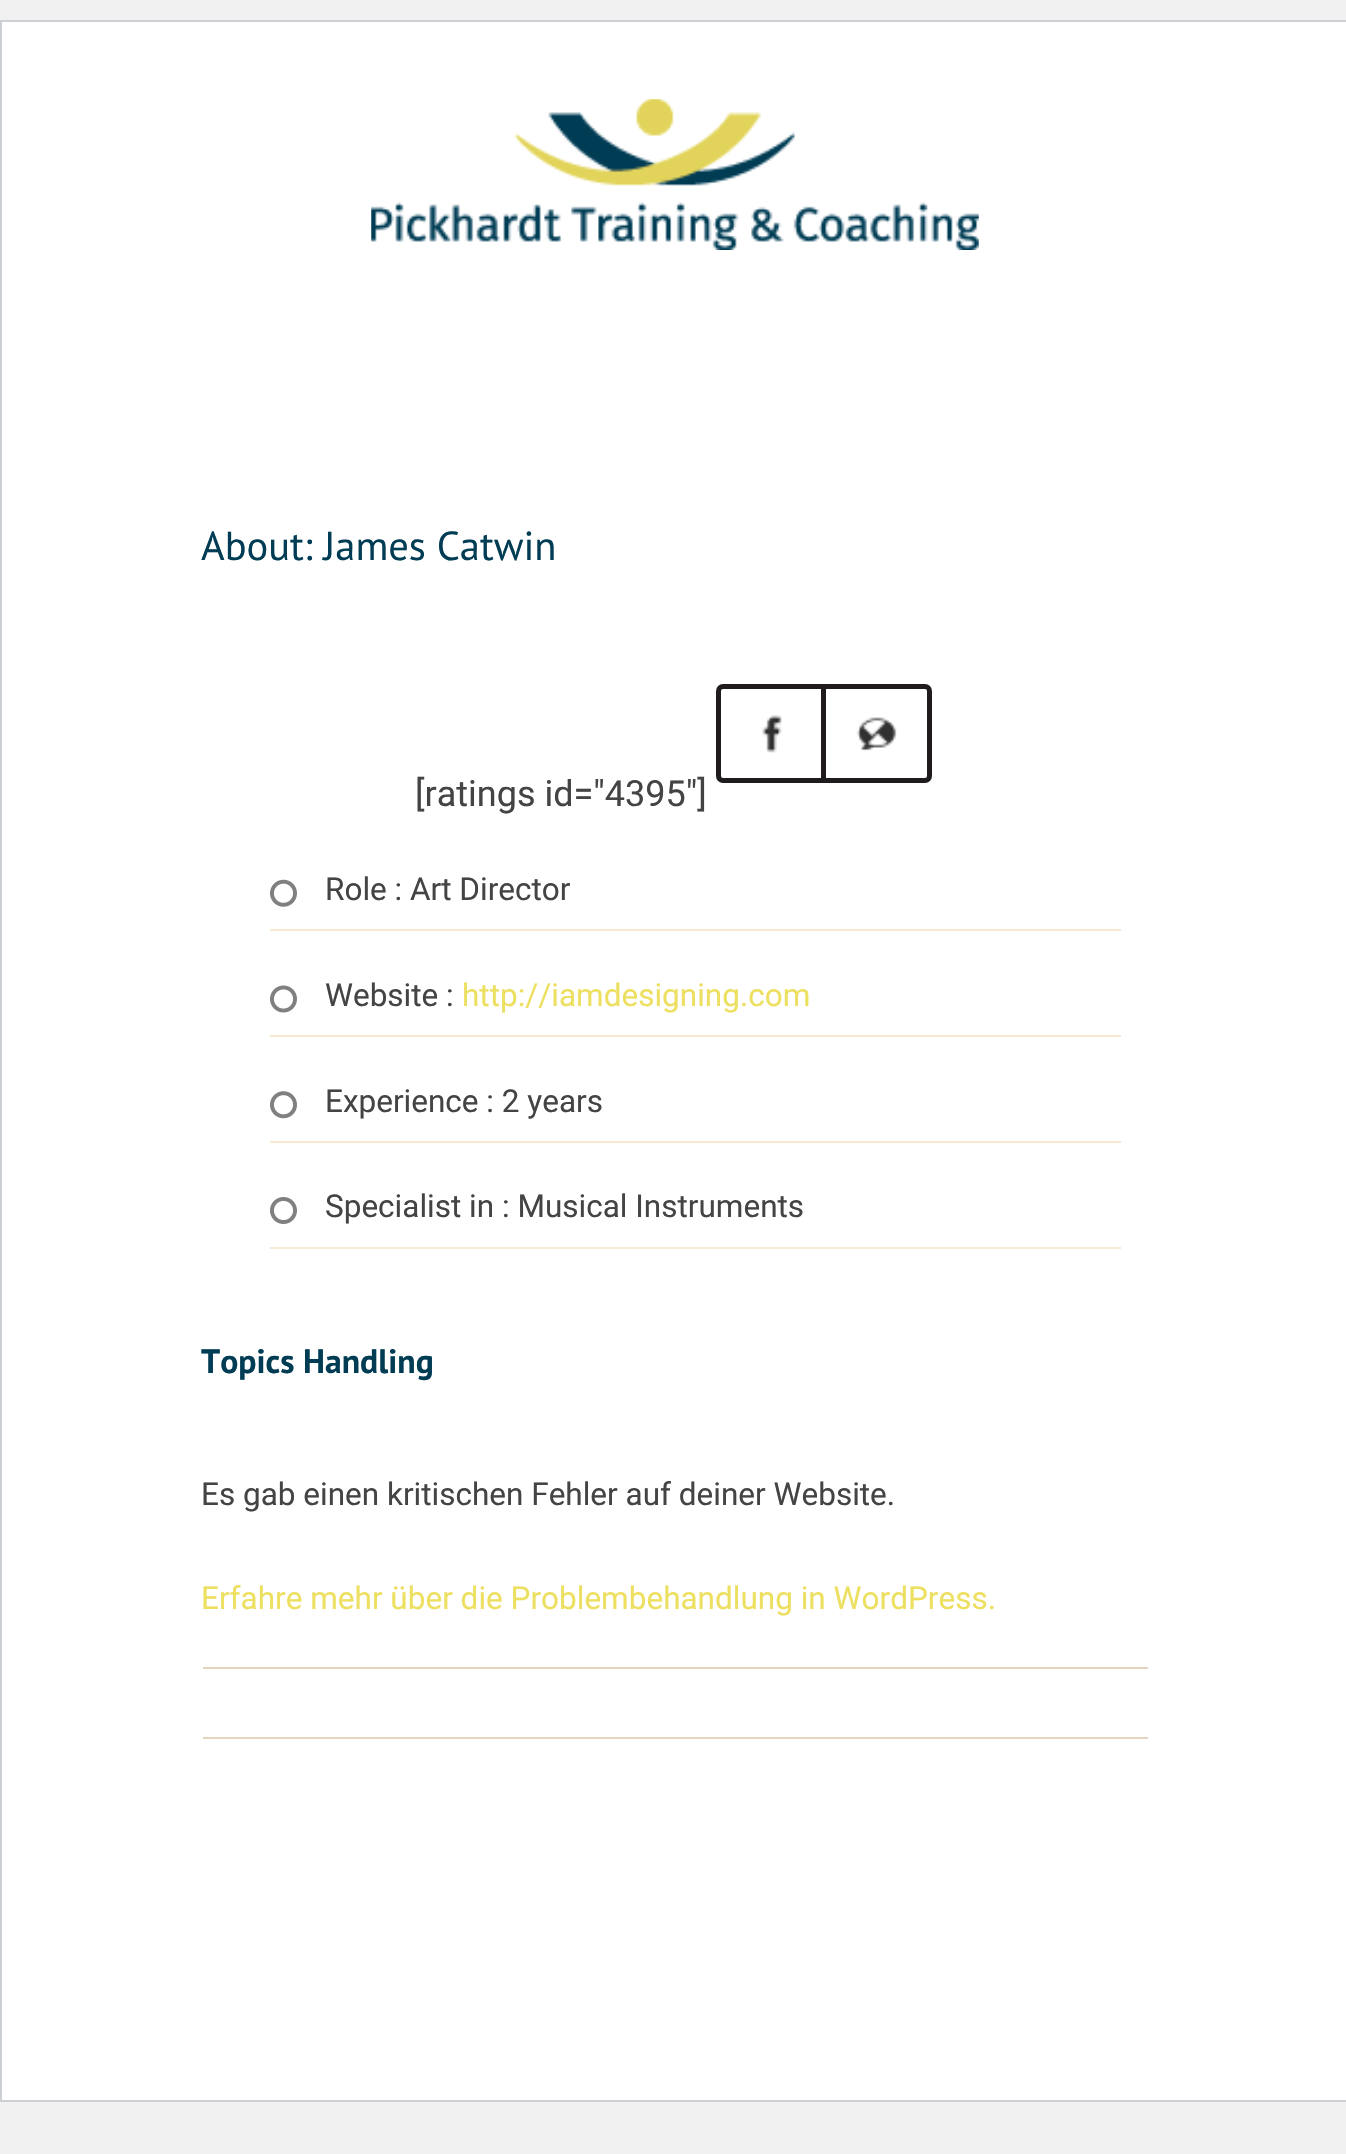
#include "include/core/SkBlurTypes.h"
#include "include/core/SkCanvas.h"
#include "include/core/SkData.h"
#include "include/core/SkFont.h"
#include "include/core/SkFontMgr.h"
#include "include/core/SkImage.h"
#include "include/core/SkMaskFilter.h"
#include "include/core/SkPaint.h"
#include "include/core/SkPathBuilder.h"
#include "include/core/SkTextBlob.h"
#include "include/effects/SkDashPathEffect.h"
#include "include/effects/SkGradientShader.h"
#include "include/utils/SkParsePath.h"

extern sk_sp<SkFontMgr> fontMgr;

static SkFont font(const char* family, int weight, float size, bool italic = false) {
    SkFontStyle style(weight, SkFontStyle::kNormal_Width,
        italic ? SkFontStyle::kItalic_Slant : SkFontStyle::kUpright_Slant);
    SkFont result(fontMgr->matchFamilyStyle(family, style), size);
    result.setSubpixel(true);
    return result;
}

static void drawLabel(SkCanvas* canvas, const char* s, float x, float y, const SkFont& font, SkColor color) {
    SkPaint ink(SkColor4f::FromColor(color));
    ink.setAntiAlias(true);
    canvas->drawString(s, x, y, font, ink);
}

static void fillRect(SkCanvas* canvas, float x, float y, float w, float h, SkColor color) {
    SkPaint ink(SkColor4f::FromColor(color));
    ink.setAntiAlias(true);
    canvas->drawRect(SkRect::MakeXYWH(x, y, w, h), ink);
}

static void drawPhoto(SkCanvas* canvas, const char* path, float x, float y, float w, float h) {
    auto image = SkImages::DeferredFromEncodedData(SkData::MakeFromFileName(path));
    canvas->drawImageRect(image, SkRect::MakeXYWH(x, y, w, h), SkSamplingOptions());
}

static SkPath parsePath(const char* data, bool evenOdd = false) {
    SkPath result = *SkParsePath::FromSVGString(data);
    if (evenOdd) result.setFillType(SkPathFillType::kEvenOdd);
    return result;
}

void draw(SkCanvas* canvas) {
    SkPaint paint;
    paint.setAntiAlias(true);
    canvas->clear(0xFFF1F1F1);
    paint.setColor(0xFFFFFFFF);
    canvas->drawRect(SkRect::MakeXYWH(1, 21, 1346, 2080), paint);
    paint.setStroke(true);
    paint.setStrokeWidth(2);
    paint.setColor(0xFFCCD0D4);
    canvas->drawRect(SkRect::MakeXYWH(1, 21, 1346, 2080), paint);
    drawPhoto(canvas, "assets/img1.png", 371, 99, 608, 151);
    SkFont font1 = font("PT Sans", 400, 40.5f);
    drawLabel(canvas, "About: James Catwin", 201, 560, font1, 0xFF003C54);
    paint.setStrokeWidth(5);
    paint.setColor(0xFF201C1D);
    canvas->drawPath(parsePath("M723 686.5H823.5V780.5H723C720.5 780.5 718.5 778.5 718.5 776V691C718.5 688.5 720.5 686.5 723 686.5Z"), paint);
    drawPhoto(canvas, "assets/img2.png", 762, 715, 20, 38);
    canvas->drawPath(parsePath("M823.5 686.5H925C927.5 686.5 929.5 688.5 929.5 691V776C929.5 778.5 927.5 780.5 925 780.5H823.5Z"), paint);
    drawPhoto(canvas, "assets/img3.png", 856, 717, 41, 34);
    SkFont font2 = font("Roboto", 400, 36);
    drawLabel(canvas, "[ratings id=\"4395\"]", 415, 806, font2, 0xFF444444);
    fillRect(canvas, 270, 929, 851, 2, 0xFFF5E9D4);
    drawPhoto(canvas, "assets/img4.png", 270, 879, 27, 28);
    SkFont font3 = font("Roboto", 400, 31.5f);
    drawLabel(canvas, "Role : Art Director", 325, 900, font3, 0xFF444444);
    fillRect(canvas, 270, 1035, 851, 2, 0xFFF5E9D4);
    drawPhoto(canvas, "assets/img5.png", 270, 985, 27, 28);
    drawLabel(canvas, "Website :", 325, 1006, font3, 0xFF444444);
    drawLabel(canvas, "http://iamdesigning.com", 462, 1006, font3, 0xFFEDDF5F);
    fillRect(canvas, 270, 1141, 851, 2, 0xFFF5E9D4);
    drawPhoto(canvas, "assets/img6.png", 270, 1091, 27, 28);
    drawLabel(canvas, "Experience : 2 years", 325, 1112, font3, 0xFF444444);
    fillRect(canvas, 270, 1247, 851, 2, 0xFFF5E9D4);
    drawPhoto(canvas, "assets/img7.png", 270, 1197, 27, 27);
    drawLabel(canvas, "Specialist in : Musical Instruments", 325, 1217, font3, 0xFF444444);
    SkFont font4 = font("PT Sans", 700, 33.75f);
    drawLabel(canvas, "Topics Handling", 201, 1373, font4, 0xFF003C54);
    drawLabel(canvas, "Es gab einen kritischen Fehler auf deiner Website.", 201, 1505, font3, 0xFF444444);
    drawLabel(canvas, "Erfahre mehr über die Problembehandlung in WordPress.", 201, 1609, font3, 0xFFEDDF5F);
    fillRect(canvas, 203, 1667, 945, 2, 0xFFE2D6C1);
    fillRect(canvas, 203, 1737, 945, 2, 0xFFE2D6C1);
}
